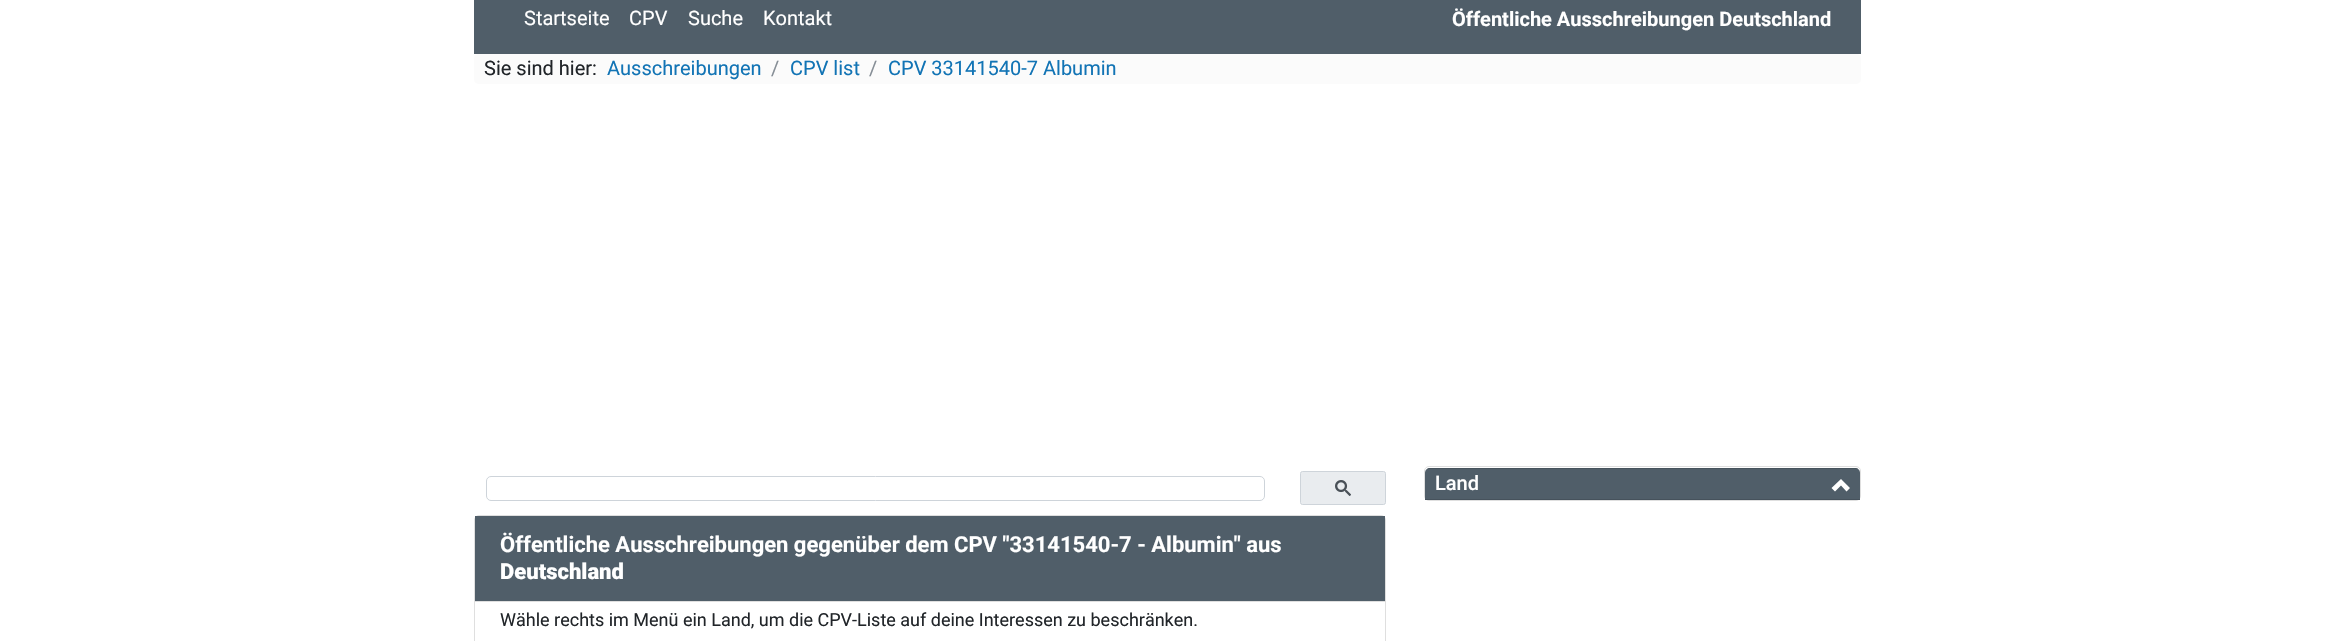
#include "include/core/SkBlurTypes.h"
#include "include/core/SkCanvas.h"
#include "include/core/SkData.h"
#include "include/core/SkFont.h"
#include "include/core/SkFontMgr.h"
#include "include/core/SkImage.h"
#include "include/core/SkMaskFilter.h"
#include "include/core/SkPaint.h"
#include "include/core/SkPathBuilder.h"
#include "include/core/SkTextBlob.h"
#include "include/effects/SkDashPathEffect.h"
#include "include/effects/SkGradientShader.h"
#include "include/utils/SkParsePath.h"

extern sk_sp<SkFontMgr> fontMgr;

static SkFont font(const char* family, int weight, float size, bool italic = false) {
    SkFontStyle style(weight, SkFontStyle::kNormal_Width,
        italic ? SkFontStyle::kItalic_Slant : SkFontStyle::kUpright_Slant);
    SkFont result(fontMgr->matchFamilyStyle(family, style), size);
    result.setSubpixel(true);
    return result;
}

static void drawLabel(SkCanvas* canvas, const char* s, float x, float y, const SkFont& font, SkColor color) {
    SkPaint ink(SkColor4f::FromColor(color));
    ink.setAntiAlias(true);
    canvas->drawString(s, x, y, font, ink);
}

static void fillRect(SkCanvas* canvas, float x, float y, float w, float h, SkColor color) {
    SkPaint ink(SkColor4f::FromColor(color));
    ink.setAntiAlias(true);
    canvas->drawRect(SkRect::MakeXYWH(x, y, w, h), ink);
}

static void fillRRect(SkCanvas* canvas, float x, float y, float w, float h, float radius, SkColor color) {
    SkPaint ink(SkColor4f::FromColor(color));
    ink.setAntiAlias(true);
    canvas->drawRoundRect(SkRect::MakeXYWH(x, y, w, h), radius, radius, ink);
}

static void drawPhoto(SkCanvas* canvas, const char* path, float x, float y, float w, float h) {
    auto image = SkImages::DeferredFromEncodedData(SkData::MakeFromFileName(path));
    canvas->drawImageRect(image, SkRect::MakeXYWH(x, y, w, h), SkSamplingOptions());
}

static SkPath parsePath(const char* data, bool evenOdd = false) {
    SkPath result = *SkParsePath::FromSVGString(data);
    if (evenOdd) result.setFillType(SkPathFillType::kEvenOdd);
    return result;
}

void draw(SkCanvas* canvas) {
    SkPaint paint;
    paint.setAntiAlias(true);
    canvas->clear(0xFFFFFFFF);
    fillRect(canvas, 474, 0, 1387, 54, 0xFF505E69);
    SkFont font1 = font("Roboto", 400, 20);
    drawLabel(canvas, "Startseite", 524, 25, font1, 0xFFFFFFFF);
    drawLabel(canvas, "CPV", 629, 25, font1, 0xFFFFFFFF);
    drawLabel(canvas, "Suche", 688, 25, font1, 0xFFFFFFFF);
    drawLabel(canvas, "Kontakt", 763, 25, font1, 0xFFFFFFFF);
    SkFont font2 = font("Roboto", 700, 20);
    drawLabel(canvas, "Öffentliche Ausschreibungen Deutschland", 1452, 26, font2, 0xFFFFFFFF);
    fillRRect(canvas, 474, 54, 1387, 30, 5, 0xFFFBFBFB);
    drawLabel(canvas, "Sie sind hier:", 484, 75, font1, 0xFF212529);
    drawLabel(canvas, "Ausschreibungen", 607, 75, font1, 0xFF1274B5);
    drawLabel(canvas, "/", 771, 75, font1, 0xFF868E96);
    drawLabel(canvas, "CPV list", 790, 75, font1, 0xFF1274B5);
    drawLabel(canvas, "/", 869, 75, font1, 0xFF868E96);
    drawLabel(canvas, "CPV 33141540-7 Albumin", 888, 75, font1, 0xFF1274B5);
    paint.setStroke(true);
    paint.setStrokeWidth(1);
    paint.setColor(0xFFDFDFDF);
    canvas->drawRoundRect(SkRect::MakeXYWH(1424.5f, 466.5f, 436, 34), 4.5f, 4.5f, paint);
    paint.setStroke(false);
    paint.setColor(0xFF505E69);
    canvas->drawPath(parsePath("M1430 468H1855C1858 468 1860 470 1860 473V500H1425V473C1425 470 1427 468 1430 468Z"), paint);
    fillRect(canvas, 1428, 468, 430, 1, 0x1F000000);
    fillRect(canvas, 1425, 499, 435, 1, 0xFF46525C);
    SkFont font3 = font("Roboto", 500, 20);
    drawLabel(canvas, "Land", 1435, 490, font3, 0xFFFFFFFF);
    paint.setColor(0xFFFFFFFF);
    canvas->drawPath(parsePath("M1831.5 488L1841 479L1850 488L1846.5 491.5L1841 485.5L1835 491.5Z"), paint);
    paint.setStroke(true);
    paint.setColor(0xFFCED4DA);
    canvas->drawRoundRect(SkRect::MakeXYWH(486.5f, 476.5f, 778, 24), 4.5f, 4.5f, paint);
    paint.setStroke(false);
    paint.setColor(0xFFE9ECEF);
    canvas->drawRoundRect(SkRect::MakeXYWH(1300.5f, 471.5f, 85, 33), 2, 2, paint);
    paint.setStroke(true);
    paint.setColor(0xFFCED4DA);
    canvas->drawRoundRect(SkRect::MakeXYWH(1300.5f, 471.5f, 85, 33), 2, 2, paint);
    drawPhoto(canvas, "assets/img1.png", 1335, 480, 16, 16);
    paint.setColor(0xFFDFDFDF);
    canvas->drawRoundRect(SkRect::MakeXYWH(474.5f, 515.5f, 911, 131), 4.5f, 4.5f, paint);
    fillRect(canvas, 475, 516, 910, 85, 0xFF505E69);
    SkFont font4 = font("Roboto", 700, 22);
    drawLabel(canvas, "Öffentliche Ausschreibungen gegenüber dem CPV \"33141540-7 - Albumin\" aus", 500, 552, font4, 0xFFFFFFFF);
    SkFont font5 = font("Roboto", 900, 22);
    drawLabel(canvas, "Deutschland", 500, 579, font5, 0xFFFFFFFF);
    fillRect(canvas, 475, 601, 910, 1, 0xFFDFDFDF);
    SkFont font6 = font("Roboto", 400, 18);
    drawLabel(canvas, "Wähle rechts im Menü ein Land, um die CPV-Liste auf deine Interessen zu beschränken.", 500, 626, font6, 0xFF212529);
}
